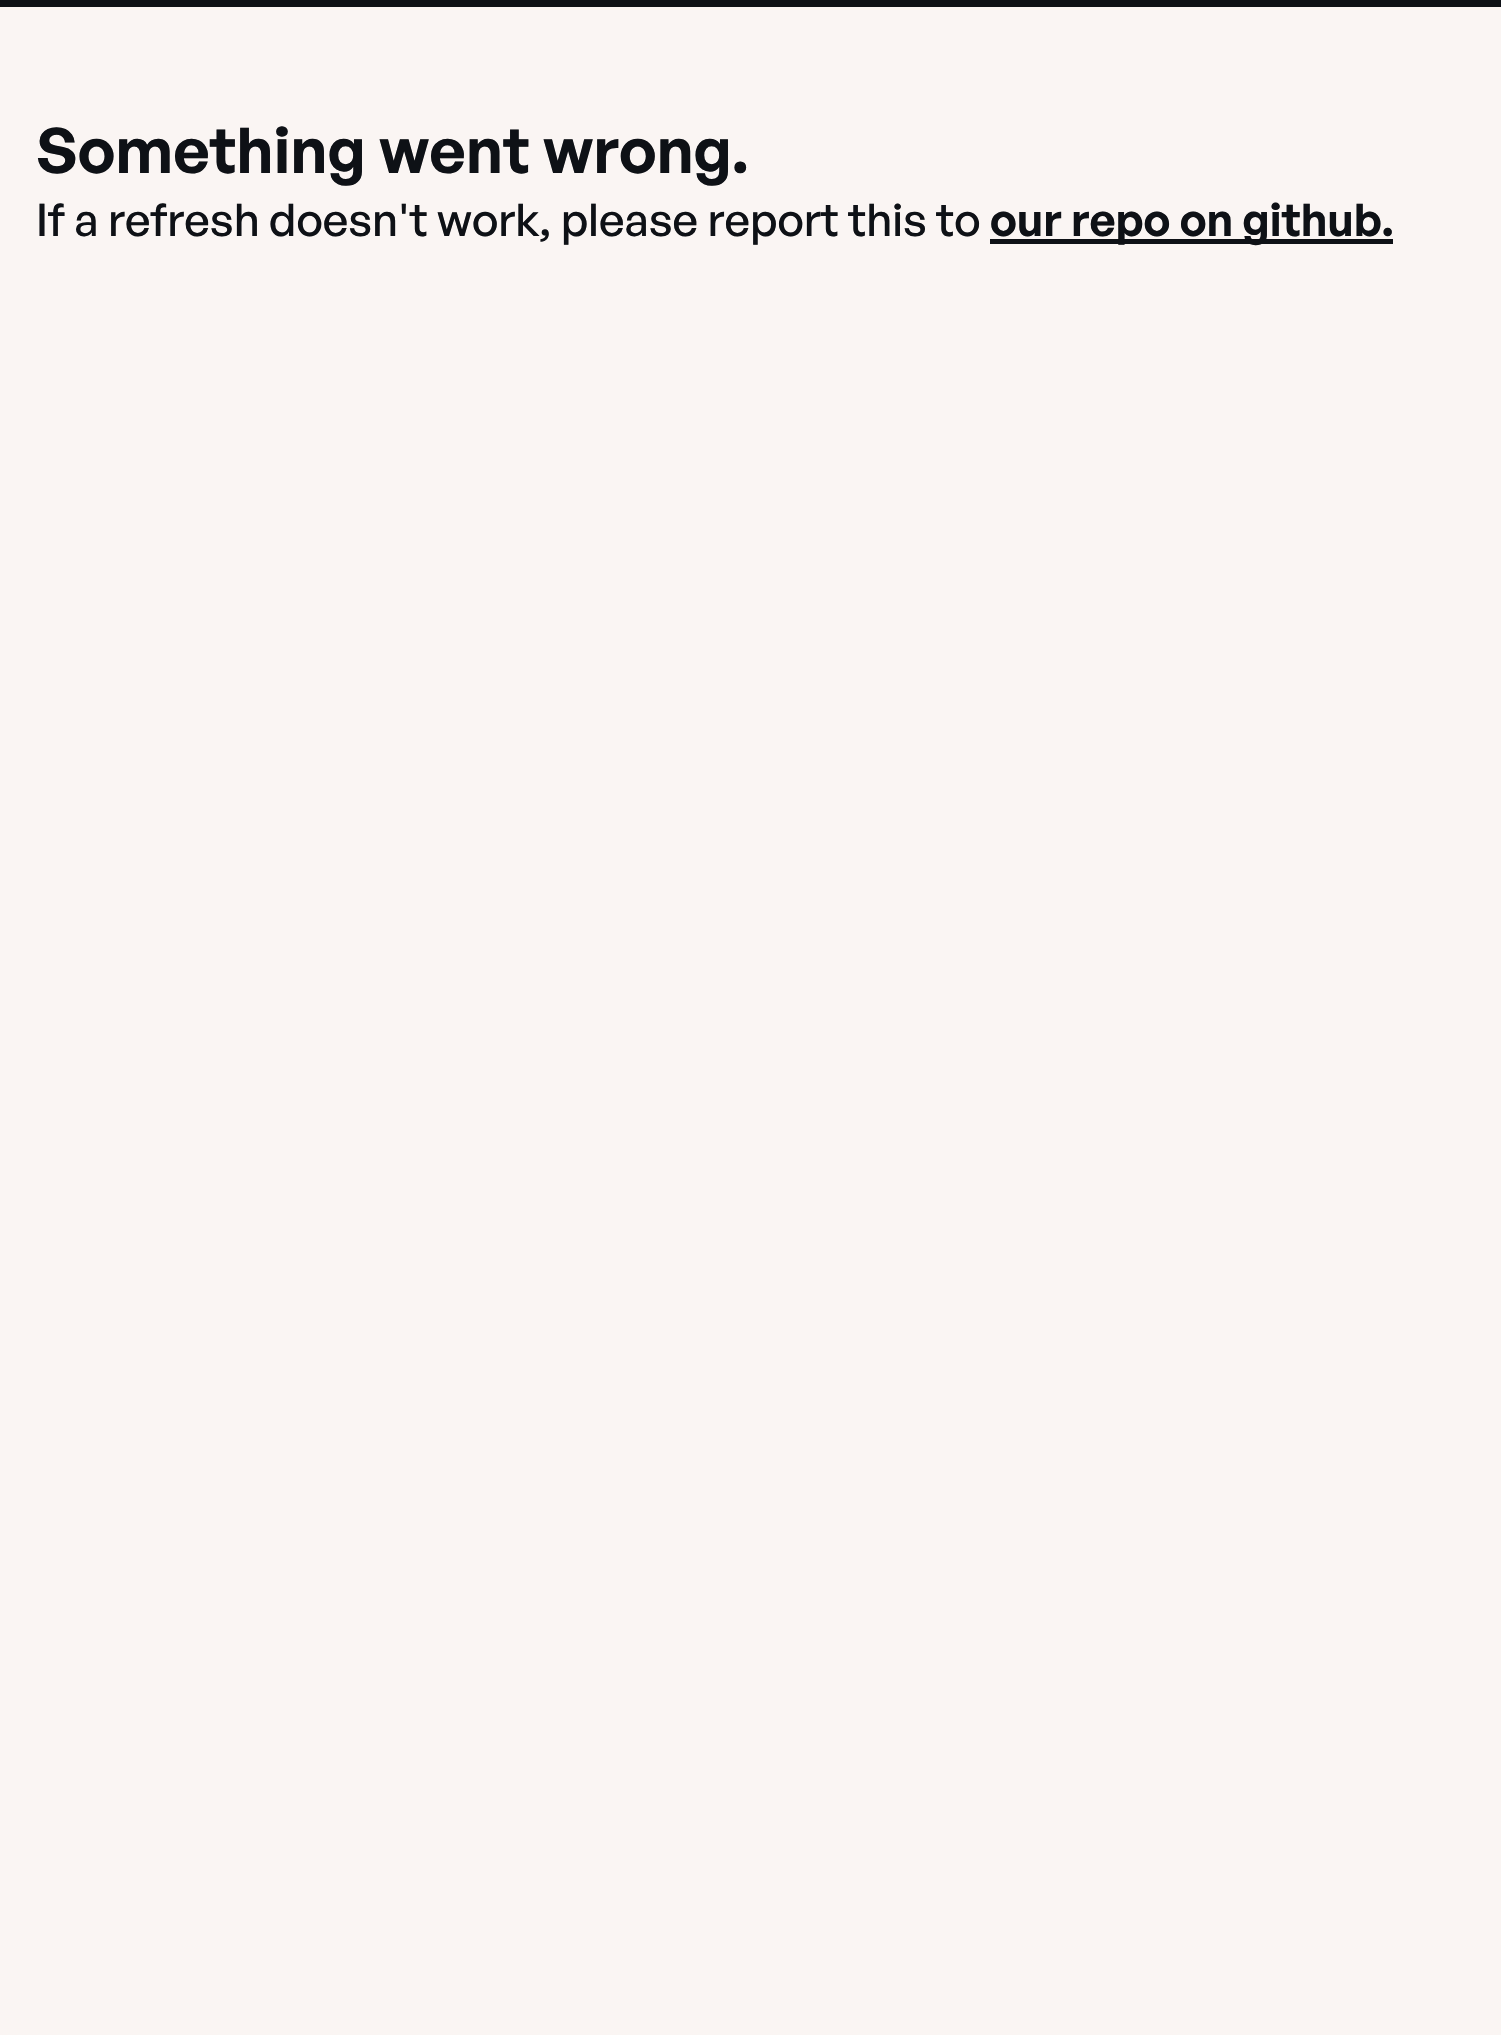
#include "include/core/SkBlurTypes.h"
#include "include/core/SkCanvas.h"
#include "include/core/SkData.h"
#include "include/core/SkFont.h"
#include "include/core/SkFontMgr.h"
#include "include/core/SkImage.h"
#include "include/core/SkMaskFilter.h"
#include "include/core/SkPaint.h"
#include "include/core/SkPathBuilder.h"
#include "include/core/SkTextBlob.h"
#include "include/effects/SkDashPathEffect.h"
#include "include/effects/SkGradientShader.h"
#include "include/utils/SkParsePath.h"

extern sk_sp<SkFontMgr> fontMgr;

static SkFont font(const char* family, int weight, float size, bool italic = false) {
    SkFontStyle style(weight, SkFontStyle::kNormal_Width,
        italic ? SkFontStyle::kItalic_Slant : SkFontStyle::kUpright_Slant);
    SkFont result(fontMgr->matchFamilyStyle(family, style), size);
    result.setSubpixel(true);
    return result;
}

static void drawLabel(SkCanvas* canvas, const char* s, float x, float y, const SkFont& font, SkColor color) {
    SkPaint ink(SkColor4f::FromColor(color));
    ink.setAntiAlias(true);
    canvas->drawString(s, x, y, font, ink);
}

static void fillRect(SkCanvas* canvas, float x, float y, float w, float h, SkColor color) {
    SkPaint ink(SkColor4f::FromColor(color));
    ink.setAntiAlias(true);
    canvas->drawRect(SkRect::MakeXYWH(x, y, w, h), ink);
}

void draw(SkCanvas* canvas) {
    SkPaint paint;
    paint.setAntiAlias(true);
    canvas->clear(0xFFFAF5F3);
    fillRect(canvas, 0, 0, 1501, 7, 0xFF0E1116);
    SkFont font1 = font("General Sans", 600, 63);
    drawLabel(canvas, "Something went wrong.", 36, 173, font1, 0xFF0E1116);
    SkFont font2 = font("General Sans", 500, 45);
    drawLabel(canvas, "If a refresh doesn't work, please report this to", 36, 236, font2, 0xFF0E1116);
    fillRect(canvas, 990, 239, 403, 5, 0xFF0E1116);
    SkFont font3 = font("General Sans", 600, 45);
    drawLabel(canvas, "our repo on github.", 990, 236, font3, 0xFF0E1116);
}
